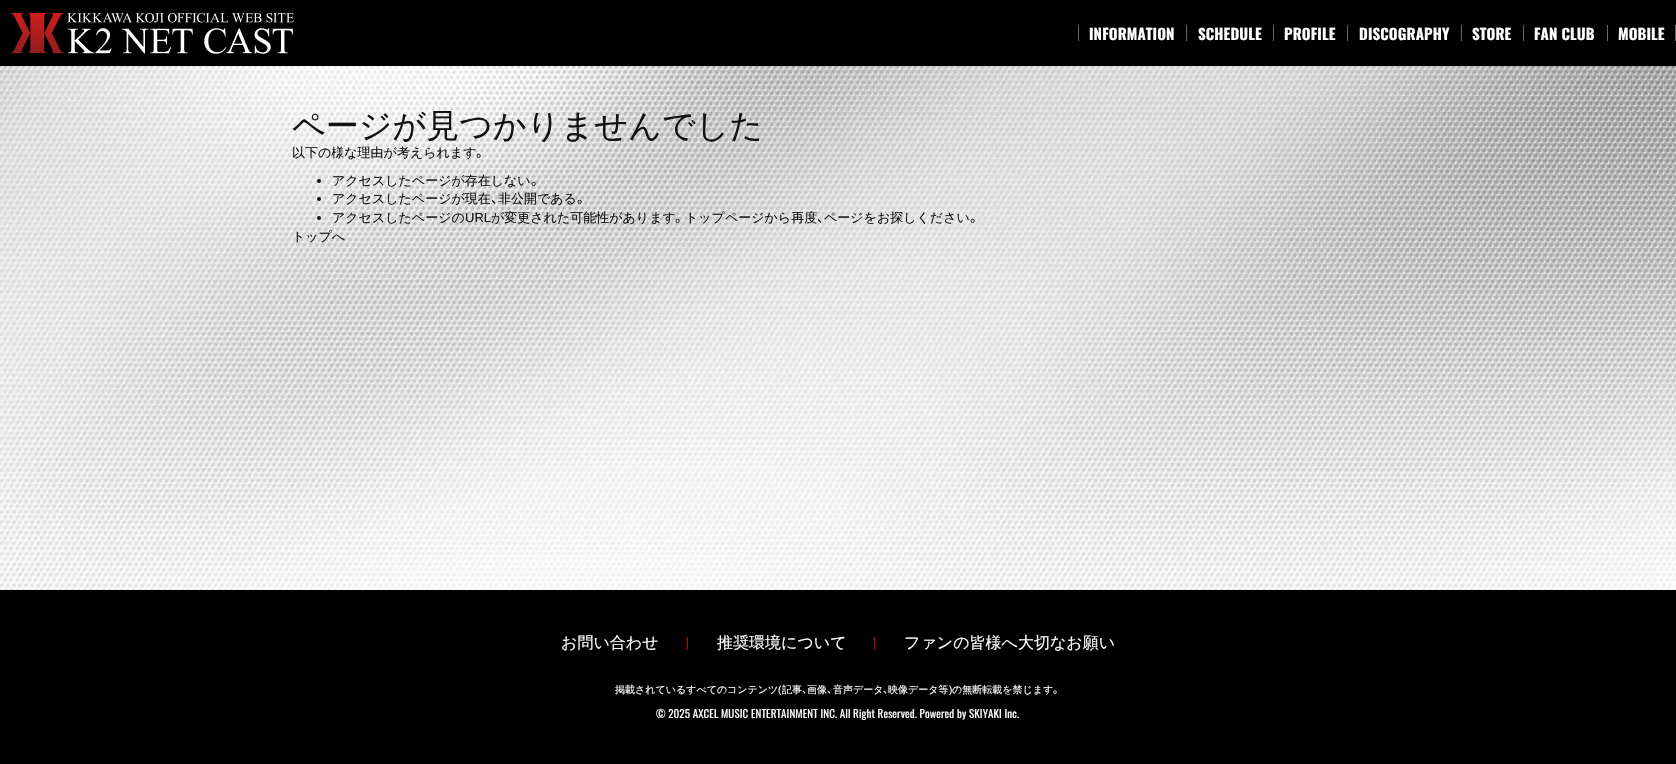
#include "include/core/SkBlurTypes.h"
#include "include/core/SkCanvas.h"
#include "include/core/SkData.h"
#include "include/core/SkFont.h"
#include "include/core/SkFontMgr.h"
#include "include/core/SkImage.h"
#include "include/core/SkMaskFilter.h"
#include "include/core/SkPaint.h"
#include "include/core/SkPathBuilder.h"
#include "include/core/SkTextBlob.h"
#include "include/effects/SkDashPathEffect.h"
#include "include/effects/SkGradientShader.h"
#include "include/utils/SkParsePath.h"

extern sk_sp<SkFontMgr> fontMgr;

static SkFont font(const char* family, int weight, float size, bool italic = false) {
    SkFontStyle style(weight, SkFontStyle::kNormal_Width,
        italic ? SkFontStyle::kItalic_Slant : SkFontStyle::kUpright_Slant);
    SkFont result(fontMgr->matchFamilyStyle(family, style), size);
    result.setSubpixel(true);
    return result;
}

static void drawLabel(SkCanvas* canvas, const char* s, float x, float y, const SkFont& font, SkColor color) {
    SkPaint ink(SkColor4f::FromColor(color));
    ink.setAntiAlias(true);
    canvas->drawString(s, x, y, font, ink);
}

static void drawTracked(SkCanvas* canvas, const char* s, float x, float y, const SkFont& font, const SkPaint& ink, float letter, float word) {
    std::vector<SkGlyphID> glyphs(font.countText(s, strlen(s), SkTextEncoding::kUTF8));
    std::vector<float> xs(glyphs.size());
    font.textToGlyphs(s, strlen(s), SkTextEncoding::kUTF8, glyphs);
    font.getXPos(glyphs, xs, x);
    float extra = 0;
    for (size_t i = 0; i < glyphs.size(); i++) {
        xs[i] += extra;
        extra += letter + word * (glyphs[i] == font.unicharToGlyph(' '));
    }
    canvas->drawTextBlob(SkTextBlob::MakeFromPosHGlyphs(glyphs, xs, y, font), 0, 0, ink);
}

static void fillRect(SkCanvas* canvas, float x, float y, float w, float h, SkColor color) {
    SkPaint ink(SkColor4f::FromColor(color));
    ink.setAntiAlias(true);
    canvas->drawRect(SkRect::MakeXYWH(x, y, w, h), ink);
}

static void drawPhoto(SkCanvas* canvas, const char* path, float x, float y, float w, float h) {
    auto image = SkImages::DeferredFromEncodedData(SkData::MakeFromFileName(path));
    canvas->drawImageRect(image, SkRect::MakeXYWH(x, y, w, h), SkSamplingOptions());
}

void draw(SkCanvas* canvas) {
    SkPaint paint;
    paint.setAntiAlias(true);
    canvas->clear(0xFFFFFFFF);
    fillRect(canvas, 0, 0, 1676, 66, 0xFF000000);
    drawPhoto(canvas, "assets/img1.png", 10, 13, 284, 41);
    fillRect(canvas, 1078, 25, 1, 16, 0xFF666666);
    SkFont font1 = font("Oswald", 700, 15);
    paint.setColor(0xFFFFFFFF);
    drawTracked(canvas, "INFORMATION", 1089, 40, font1, paint, 0.1f, 0);
    fillRect(canvas, 1186, 25, 1, 16, 0xFF666666);
    drawTracked(canvas, "SCHEDULE", 1198, 40, font1, paint, 0.1f, 0);
    fillRect(canvas, 1273, 25, 1, 16, 0xFF666666);
    drawTracked(canvas, "PROFILE", 1284, 40, font1, paint, 0.1f, 0);
    fillRect(canvas, 1347, 25, 1, 16, 0xFF666666);
    drawTracked(canvas, "DISCOGRAPHY", 1359, 40, font1, paint, 0.1f, 0);
    fillRect(canvas, 1461, 25, 1, 16, 0xFF666666);
    drawTracked(canvas, "STORE", 1472, 40, font1, paint, 0.1f, 0);
    fillRect(canvas, 1523, 25, 1, 16, 0xFF666666);
    drawTracked(canvas, "FAN CLUB", 1534, 40, font1, paint, 0.1f, 0);
    fillRect(canvas, 1607, 25, 1, 16, 0xFF666666);
    drawTracked(canvas, "MOBILE", 1618, 40, font1, paint, 0.1f, 0);
    fillRect(canvas, 1675, 25, 1, 16, 0xFF666666);
    drawPhoto(canvas, "assets/img2.png", 0, 66, 1676, 524);
    SkFont font2 = font("WenQuanYi Zen Hei", 500, 33);
    drawLabel(canvas, "ページが見つかりませんでした", 292, 137, font2, 0xFF111111);
    SkFont font3 = font("WenQuanYi Zen Hei", 500, 13);
    drawLabel(canvas, "以下の様な理由が考えられます", 292, 157, font3, 0xFF111111);
    SkFont font4 = font("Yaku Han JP", 400, 13);
    drawLabel(canvas, "。", 476, 157, font4, 0xFF111111);
    paint.setColor(0xFF111111);
    canvas->drawCircle(319, 181, 2, paint);
    drawLabel(canvas, "アクセスしたページが存在しない", 332, 185, font3, 0xFF111111);
    drawLabel(canvas, "。", 531, 185, font4, 0xFF111111);
    canvas->drawCircle(319, 199, 2, paint);
    drawLabel(canvas, "アクセスしたページが現在", 332, 203, font3, 0xFF111111);
    drawLabel(canvas, "、", 491, 203, font4, 0xFF111111);
    drawLabel(canvas, "非公開である", 498, 203, font3, 0xFF111111);
    drawLabel(canvas, "。", 577, 203, font4, 0xFF111111);
    canvas->drawCircle(319, 218, 2, paint);
    drawLabel(canvas, "アクセスしたページの", 332, 222, font3, 0xFF111111);
    SkFont font5 = font("Liberation Sans", 400, 13);
    drawLabel(canvas, "URL", 465, 222, font5, 0xFF111111);
    drawLabel(canvas, "が変更された可能性があります", 491, 222, font3, 0xFF111111);
    drawLabel(canvas, "。", 675, 222, font4, 0xFF111111);
    drawLabel(canvas, "トップページから再度", 685, 222, font3, 0xFF111111);
    drawLabel(canvas, "、", 817, 222, font4, 0xFF111111);
    drawLabel(canvas, "ページをお探しください", 824, 222, font3, 0xFF111111);
    drawLabel(canvas, "。", 970, 222, font4, 0xFF111111);
    drawLabel(canvas, "トップへ", 292, 241, font3, 0xFF111111);
    fillRect(canvas, 0, 590, 1676, 174, 0xFF000000);
    SkFont font6 = font("WenQuanYi Zen Hei", 500, 16);
    drawLabel(canvas, "お問い合わせ", 561, 648, font6, 0xFFFFFFFF);
    fillRect(canvas, 687, 637, 1, 13, 0xFFCC0000);
    drawLabel(canvas, "推奨環境について", 717, 648, font6, 0xFFFFFFFF);
    fillRect(canvas, 874, 637, 1, 13, 0xFFCC0000);
    drawLabel(canvas, "ファンの皆様へ大切なお願い", 904, 648, font6, 0xFFFFFFFF);
    SkFont font7 = font("WenQuanYi Zen Hei", 500, 10);
    drawLabel(canvas, "掲載されているすべてのコンテンツ", 615, 693, font7, 0xFFFFFFFF);
    SkFont font8 = font("Liberation Sans", 400, 10);
    drawLabel(canvas, "(", 778, 693, font8, 0xFFFFFFFF);
    drawLabel(canvas, "記事", 782, 693, font7, 0xFFFFFFFF);
    SkFont font9 = font("Yaku Han JP", 400, 10);
    drawLabel(canvas, "、", 802, 693, font9, 0xFFFFFFFF);
    drawLabel(canvas, "画像", 807, 693, font7, 0xFFFFFFFF);
    drawLabel(canvas, "、", 827, 693, font9, 0xFFFFFFFF);
    drawLabel(canvas, "音声データ", 833, 693, font7, 0xFFFFFFFF);
    drawLabel(canvas, "、", 883, 693, font9, 0xFFFFFFFF);
    drawLabel(canvas, "映像データ等", 888, 693, font7, 0xFFFFFFFF);
    drawLabel(canvas, ")", 949, 693, font8, 0xFFFFFFFF);
    drawLabel(canvas, "の無断転載を禁じます", 952, 693, font7, 0xFFFFFFFF);
    drawLabel(canvas, "。", 1053, 693, font9, 0xFFFFFFFF);
    SkFont font10 = font("Oswald", 400, 11);
    paint.setColor(0xFFFFFFFF);
    drawTracked(canvas, "© 2025 AXCEL MUSIC ENTERTAINMENT INC. All Right Reserved. Powered by SKIYAKI Inc.", 656, 718, font10, paint, 0.1f, 0);
}
